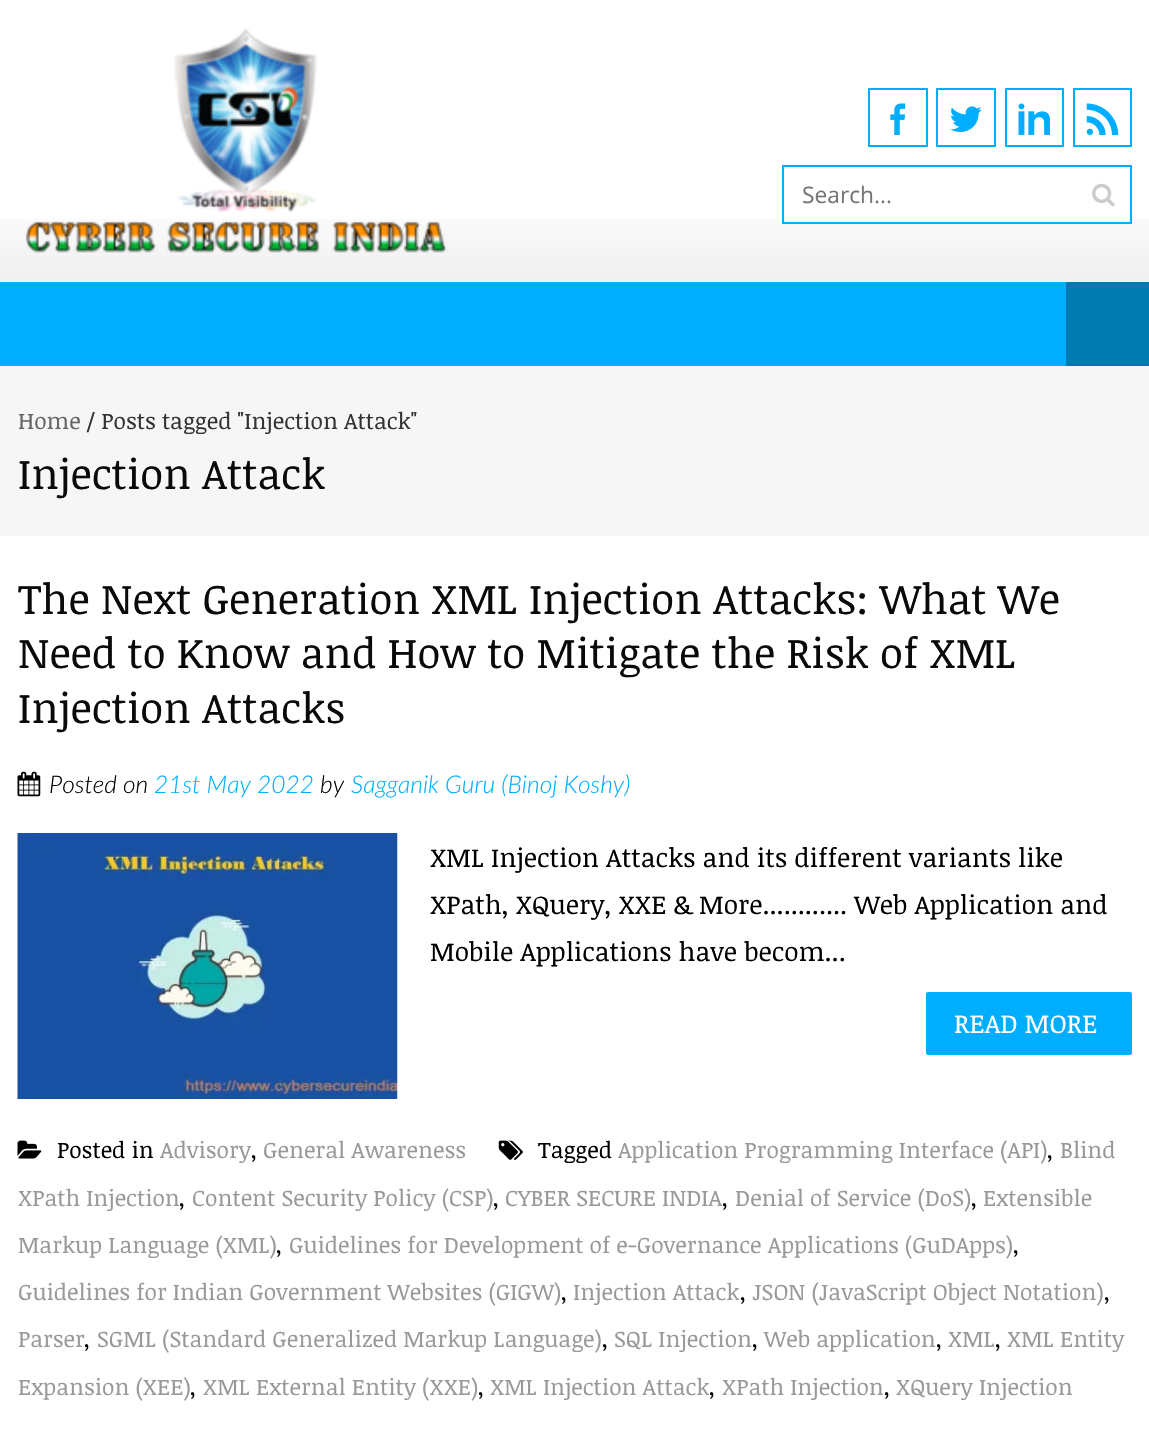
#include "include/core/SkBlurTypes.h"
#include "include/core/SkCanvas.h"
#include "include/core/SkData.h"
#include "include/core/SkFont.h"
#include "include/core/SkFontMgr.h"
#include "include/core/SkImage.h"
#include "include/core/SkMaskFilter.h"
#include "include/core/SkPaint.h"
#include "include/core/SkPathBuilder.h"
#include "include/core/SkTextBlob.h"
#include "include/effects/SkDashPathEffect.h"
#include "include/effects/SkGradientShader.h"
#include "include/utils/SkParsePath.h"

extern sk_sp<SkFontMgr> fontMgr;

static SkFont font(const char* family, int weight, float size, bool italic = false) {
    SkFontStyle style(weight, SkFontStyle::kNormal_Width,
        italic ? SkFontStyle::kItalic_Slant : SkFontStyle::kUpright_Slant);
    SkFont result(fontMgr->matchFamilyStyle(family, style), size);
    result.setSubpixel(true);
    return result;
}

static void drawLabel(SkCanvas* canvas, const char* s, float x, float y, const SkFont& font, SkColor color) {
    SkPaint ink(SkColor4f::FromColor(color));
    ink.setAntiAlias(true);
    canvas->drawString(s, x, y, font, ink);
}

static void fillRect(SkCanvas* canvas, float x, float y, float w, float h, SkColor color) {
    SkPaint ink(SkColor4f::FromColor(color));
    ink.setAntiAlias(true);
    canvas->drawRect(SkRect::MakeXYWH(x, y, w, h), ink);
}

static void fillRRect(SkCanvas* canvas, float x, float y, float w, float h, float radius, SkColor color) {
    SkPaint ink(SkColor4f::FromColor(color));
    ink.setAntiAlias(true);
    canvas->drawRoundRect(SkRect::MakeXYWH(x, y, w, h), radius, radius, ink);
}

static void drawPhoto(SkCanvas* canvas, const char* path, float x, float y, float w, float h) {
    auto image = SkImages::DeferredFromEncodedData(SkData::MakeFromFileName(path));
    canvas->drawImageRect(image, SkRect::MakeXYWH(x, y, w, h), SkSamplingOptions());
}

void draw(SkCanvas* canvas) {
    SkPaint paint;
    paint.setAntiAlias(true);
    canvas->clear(0xFFFFFFFF);
    drawPhoto(canvas, "assets/img1.png", 0, 219, 1149, 63);
    drawPhoto(canvas, "assets/img2.png", 25, 28, 422, 225);
    paint.setStroke(true);
    paint.setStrokeWidth(2);
    paint.setColor(0xFF01AEFD);
    canvas->drawRect(SkRect::MakeXYWH(869, 89, 58, 57), paint);
    drawPhoto(canvas, "assets/img3.png", 890, 103, 16, 32);
    canvas->drawRect(SkRect::MakeXYWH(937, 89, 58, 57), paint);
    drawPhoto(canvas, "assets/img4.png", 950, 106, 32, 26);
    canvas->drawRect(SkRect::MakeXYWH(1006, 89, 57, 57), paint);
    drawPhoto(canvas, "assets/img5.png", 1018, 103, 32, 32);
    canvas->drawRect(SkRect::MakeXYWH(1074, 89, 57, 57), paint);
    drawPhoto(canvas, "assets/img6.png", 1086, 103, 33, 32);
    canvas->drawRect(SkRect::MakeXYWH(783, 166, 348, 57), paint);
    SkFont font1 = font("Open Sans", 400, 22.75f);
    drawLabel(canvas, "Search...", 802, 203, font1, 0xFF757575);
    drawPhoto(canvas, "assets/img7.png", 1092, 183, 23, 24);
    fillRect(canvas, 0, 282, 1066, 84, 0xFF01AEFD);
    fillRect(canvas, 1066, 282, 83, 84, 0xFF017AB1);
    fillRect(canvas, 0, 366, 1149, 170, 0xFFF6F6F6);
    SkFont font2 = font("Noticia Text", 400, 22.75f);
    drawLabel(canvas, "Home", 18, 429, font2, 0xFF666666);
    drawLabel(canvas, "/ Posts tagged \"Injection Attack\"", 86, 429, font2, 0xFF333333);
    SkFont font3 = font("Noticia Text", 400, 42);
    drawLabel(canvas, "Injection Attack", 18, 489, font3, 0xFF0A0A0A);
    drawLabel(canvas, "The Next Generation XML Injection Attacks: What We", 18, 614, font3, 0xFF0A0A0A);
    drawLabel(canvas, "Need to Know and How to Mitigate the Risk of XML", 18, 668, font3, 0xFF0A0A0A);
    drawLabel(canvas, "Injection Attacks", 18, 723, font3, 0xFF0A0A0A);
    drawPhoto(canvas, "assets/img8.png", 17, 771, 24, 26);
    SkFont font4 = font("Lato", 300, 24.5f, true);
    drawLabel(canvas, "Posted on", 49, 793, font4, 0xFF000000);
    drawLabel(canvas, "21st May 2022", 154, 793, font4, 0xFF01AEFD);
    drawLabel(canvas, "by", 320, 793, font4, 0xFF000000);
    drawLabel(canvas, "Sagganik Guru (Binoj Koshy)", 351, 793, font4, 0xFF01AEFD);
    drawPhoto(canvas, "assets/img9.png", 17, 833, 381, 266);
    SkFont font5 = font("Noticia Text", 400, 26.25f);
    drawLabel(canvas, "XML Injection Attacks and its different variants like", 430, 867, font5, 0xFF000000);
    drawLabel(canvas, "XPath, XQuery, XXE & More............ Web Application and", 430, 914, font5, 0xFF000000);
    drawLabel(canvas, "Mobile Applications have becom...", 430, 961, font5, 0xFF000000);
    fillRRect(canvas, 926, 992, 206, 63, 2, 0xFF01AEFD);
    drawLabel(canvas, "READ MORE", 954, 1033, font5, 0xFFFFFFFF);
    drawPhoto(canvas, "assets/img10.png", 17, 1140, 25, 19);
    drawLabel(canvas, "Posted in", 57, 1158, font2, 0xFF000000);
    drawLabel(canvas, "Advisory", 160, 1158, font2, 0xFF999999);
    drawLabel(canvas, ",", 251, 1158, font2, 0xFF000000);
    drawLabel(canvas, "General Awareness", 263, 1158, font2, 0xFF999999);
    drawPhoto(canvas, "assets/img11.png", 498, 1140, 25, 20);
    drawLabel(canvas, "Tagged", 538, 1158, font2, 0xFF000000);
    drawLabel(canvas, "Application Programming Interface (API)", 618, 1158, font2, 0xFF999999);
    drawLabel(canvas, ",", 1047, 1158, font2, 0xFF000000);
    drawLabel(canvas, "Blind", 1060, 1158, font2, 0xFF999999);
    drawLabel(canvas, "XPath Injection", 18, 1206, font2, 0xFF999999);
    drawLabel(canvas, ",", 179, 1206, font2, 0xFF000000);
    drawLabel(canvas, "Content Security Policy (CSP)", 192, 1206, font2, 0xFF999999);
    drawLabel(canvas, ",", 493, 1206, font2, 0xFF000000);
    drawLabel(canvas, "CYBER SECURE INDIA", 505, 1206, font2, 0xFF999999);
    drawLabel(canvas, ",", 722, 1206, font2, 0xFF000000);
    drawLabel(canvas, "Denial of Service (DoS)", 735, 1206, font2, 0xFF999999);
    drawLabel(canvas, ",", 971, 1206, font2, 0xFF000000);
    drawLabel(canvas, "Extensible", 983, 1206, font2, 0xFF999999);
    drawLabel(canvas, "Markup Language (XML)", 18, 1253, font2, 0xFF999999);
    drawLabel(canvas, ",", 276, 1253, font2, 0xFF000000);
    drawLabel(canvas, "Guidelines for Development of e-Governance Applications (GuDApps)", 289, 1253, font2, 0xFF999999);
    drawLabel(canvas, ",", 1013, 1253, font2, 0xFF000000);
    drawLabel(canvas, "Guidelines for Indian Government Websites (GIGW)", 18, 1300, font2, 0xFF999999);
    drawLabel(canvas, ",", 561, 1300, font2, 0xFF000000);
    drawLabel(canvas, "Injection Attack", 573, 1300, font2, 0xFF999999);
    drawLabel(canvas, ",", 740, 1300, font2, 0xFF000000);
    drawLabel(canvas, "JSON (JavaScript Object Notation)", 752, 1300, font2, 0xFF999999);
    drawLabel(canvas, ",", 1104, 1300, font2, 0xFF000000);
    drawLabel(canvas, "Parser", 18, 1347, font2, 0xFF999999);
    drawLabel(canvas, "SGML (Standard Generalized Markup Language)", 97, 1347, font2, 0xFF999999);
    drawLabel(canvas, "SQL Injection", 614, 1347, font2, 0xFF999999);
    drawLabel(canvas, "Web application", 764, 1347, font2, 0xFF999999);
    drawLabel(canvas, "XML", 948, 1347, font2, 0xFF999999);
    drawLabel(canvas, "XML Entity", 1007, 1347, font2, 0xFF999999);
    drawLabel(canvas, ",", 84, 1347, font2, 0xFF000000);
    drawLabel(canvas, ",", 602, 1347, font2, 0xFF000000);
    drawLabel(canvas, ",", 752, 1347, font2, 0xFF000000);
    drawLabel(canvas, ",", 936, 1347, font2, 0xFF000000);
    drawLabel(canvas, ",", 995, 1347, font2, 0xFF000000);
    drawLabel(canvas, "Expansion (XEE)", 18, 1395, font2, 0xFF999999);
    drawLabel(canvas, ",", 190, 1395, font2, 0xFF000000);
    drawLabel(canvas, "XML External Entity (XXE)", 203, 1395, font2, 0xFF999999);
    drawLabel(canvas, ",", 478, 1395, font2, 0xFF000000);
    drawLabel(canvas, "XML Injection Attack", 490, 1395, font2, 0xFF999999);
    drawLabel(canvas, ",", 709, 1395, font2, 0xFF000000);
    drawLabel(canvas, "XPath Injection", 722, 1395, font2, 0xFF999999);
    drawLabel(canvas, ",", 884, 1395, font2, 0xFF000000);
    drawLabel(canvas, "XQuery Injection", 896, 1395, font2, 0xFF999999);
}
